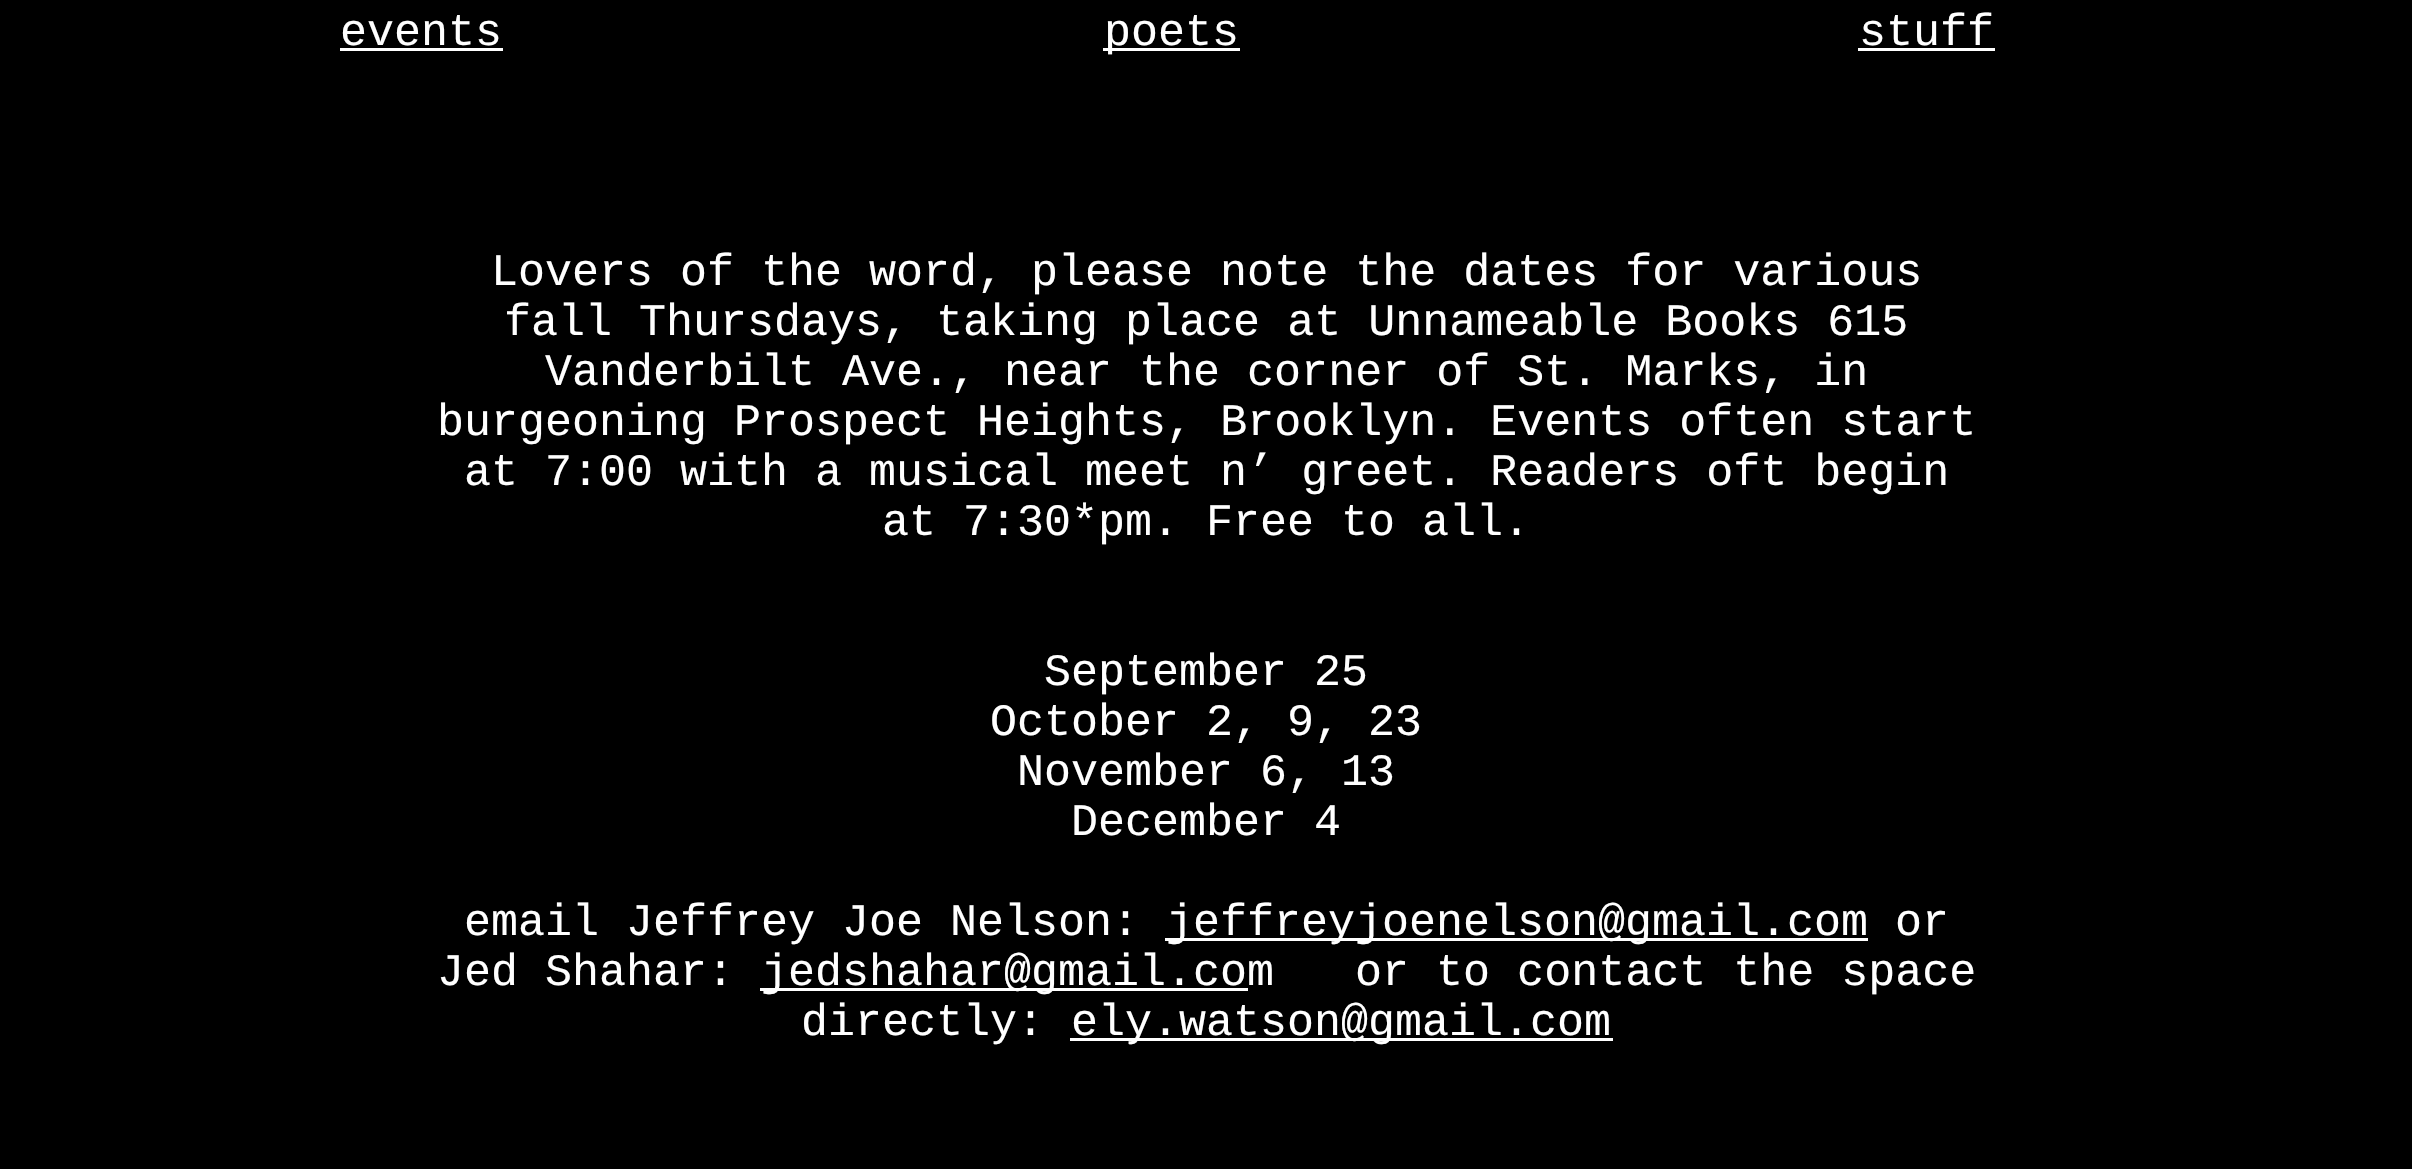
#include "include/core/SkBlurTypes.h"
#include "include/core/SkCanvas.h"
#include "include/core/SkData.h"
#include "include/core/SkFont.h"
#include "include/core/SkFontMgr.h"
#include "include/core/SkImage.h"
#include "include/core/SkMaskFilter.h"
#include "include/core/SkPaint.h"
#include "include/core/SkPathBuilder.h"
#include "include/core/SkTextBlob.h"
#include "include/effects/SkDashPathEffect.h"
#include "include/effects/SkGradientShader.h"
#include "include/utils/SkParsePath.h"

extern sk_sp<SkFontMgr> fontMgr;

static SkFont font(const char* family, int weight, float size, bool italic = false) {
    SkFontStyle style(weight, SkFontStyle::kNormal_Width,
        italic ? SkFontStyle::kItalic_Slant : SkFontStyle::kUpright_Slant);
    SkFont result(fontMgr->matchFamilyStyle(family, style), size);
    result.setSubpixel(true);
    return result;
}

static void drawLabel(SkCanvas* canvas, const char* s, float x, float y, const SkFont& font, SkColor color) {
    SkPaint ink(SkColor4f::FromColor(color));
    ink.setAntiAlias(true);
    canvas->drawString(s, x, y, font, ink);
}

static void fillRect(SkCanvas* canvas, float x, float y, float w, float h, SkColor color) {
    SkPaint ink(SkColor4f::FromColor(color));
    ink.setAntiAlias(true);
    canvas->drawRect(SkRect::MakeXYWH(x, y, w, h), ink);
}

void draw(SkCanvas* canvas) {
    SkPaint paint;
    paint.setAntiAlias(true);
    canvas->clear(0xFF000000);
    SkFont font1 = font("Liberation Mono", 400, 45);
    drawLabel(canvas, "events", 340, 45, font1, 0xFFFFFFFF);
    fillRect(canvas, 340, 48, 163, 3, 0xFFFFFFFF);
    fillRect(canvas, 1103, 48, 137, 3, 0xFFFFFFFF);
    drawLabel(canvas, "poets", 1104, 45, font1, 0xFFFFFFFF);
    drawLabel(canvas, "stuff", 1859, 45, font1, 0xFFFFFFFF);
    fillRect(canvas, 1858, 48, 137, 3, 0xFFFFFFFF);
    drawLabel(canvas, "Lovers of the word, please note the dates for various", 491, 285, font1, 0xFFFFFFFF);
    drawLabel(canvas, "fall Thursdays, taking place at Unnameable Books 615", 504, 335, font1, 0xFFFFFFFF);
    drawLabel(canvas, "Vanderbilt Ave., near the corner of St. Marks, in", 545, 385, font1, 0xFFFFFFFF);
    drawLabel(canvas, "burgeoning Prospect Heights, Brooklyn. Events often start", 437, 435, font1, 0xFFFFFFFF);
    drawLabel(canvas, "at 7:00 with a musical meet n’ greet. Readers oft begin", 464, 485, font1, 0xFFFFFFFF);
    drawLabel(canvas, "at 7:30*pm. Free to all.", 882, 535, font1, 0xFFFFFFFF);
    drawLabel(canvas, "September 25", 1044, 685, font1, 0xFFFFFFFF);
    drawLabel(canvas, "October 2, 9, 23", 990, 735, font1, 0xFFFFFFFF);
    drawLabel(canvas, "November 6, 13", 1017, 785, font1, 0xFFFFFFFF);
    drawLabel(canvas, "December 4", 1071, 835, font1, 0xFFFFFFFF);
    drawLabel(canvas, "email Jeffrey Joe Nelson:", 464, 935, font1, 0xFFFFFFFF);
    fillRect(canvas, 1165, 938, 703, 3, 0xFFFFFFFF);
    drawLabel(canvas, "jeffreyjoenelson@gmail.com or", 1166, 935, font1, 0xFFFFFFFF);
    drawLabel(canvas, "Jed Shahar:", 437, 985, font1, 0xFFFFFFFF);
    fillRect(canvas, 760, 988, 488, 3, 0xFFFFFFFF);
    drawLabel(canvas, "jedshahar@gmail.com   or to contact the space", 761, 985, font1, 0xFFFFFFFF);
    drawLabel(canvas, "directly:", 801, 1035, font1, 0xFFFFFFFF);
    fillRect(canvas, 1070, 1038, 543, 3, 0xFFFFFFFF);
    drawLabel(canvas, "ely.watson@gmail.com", 1071, 1035, font1, 0xFFFFFFFF);
}
